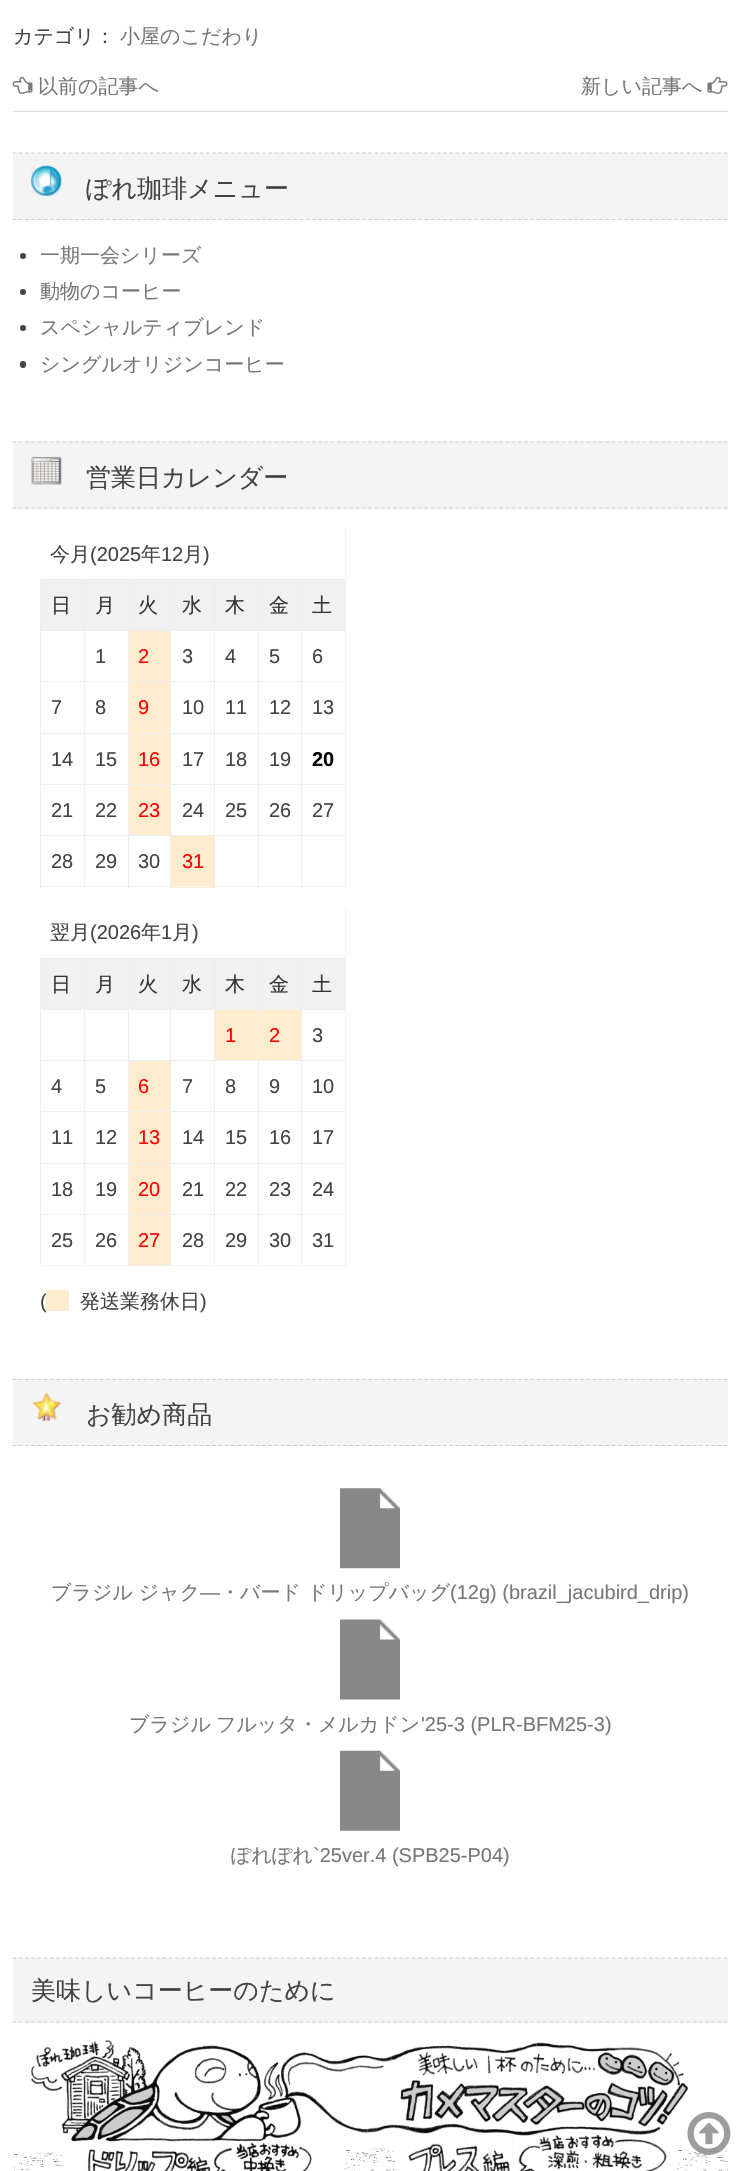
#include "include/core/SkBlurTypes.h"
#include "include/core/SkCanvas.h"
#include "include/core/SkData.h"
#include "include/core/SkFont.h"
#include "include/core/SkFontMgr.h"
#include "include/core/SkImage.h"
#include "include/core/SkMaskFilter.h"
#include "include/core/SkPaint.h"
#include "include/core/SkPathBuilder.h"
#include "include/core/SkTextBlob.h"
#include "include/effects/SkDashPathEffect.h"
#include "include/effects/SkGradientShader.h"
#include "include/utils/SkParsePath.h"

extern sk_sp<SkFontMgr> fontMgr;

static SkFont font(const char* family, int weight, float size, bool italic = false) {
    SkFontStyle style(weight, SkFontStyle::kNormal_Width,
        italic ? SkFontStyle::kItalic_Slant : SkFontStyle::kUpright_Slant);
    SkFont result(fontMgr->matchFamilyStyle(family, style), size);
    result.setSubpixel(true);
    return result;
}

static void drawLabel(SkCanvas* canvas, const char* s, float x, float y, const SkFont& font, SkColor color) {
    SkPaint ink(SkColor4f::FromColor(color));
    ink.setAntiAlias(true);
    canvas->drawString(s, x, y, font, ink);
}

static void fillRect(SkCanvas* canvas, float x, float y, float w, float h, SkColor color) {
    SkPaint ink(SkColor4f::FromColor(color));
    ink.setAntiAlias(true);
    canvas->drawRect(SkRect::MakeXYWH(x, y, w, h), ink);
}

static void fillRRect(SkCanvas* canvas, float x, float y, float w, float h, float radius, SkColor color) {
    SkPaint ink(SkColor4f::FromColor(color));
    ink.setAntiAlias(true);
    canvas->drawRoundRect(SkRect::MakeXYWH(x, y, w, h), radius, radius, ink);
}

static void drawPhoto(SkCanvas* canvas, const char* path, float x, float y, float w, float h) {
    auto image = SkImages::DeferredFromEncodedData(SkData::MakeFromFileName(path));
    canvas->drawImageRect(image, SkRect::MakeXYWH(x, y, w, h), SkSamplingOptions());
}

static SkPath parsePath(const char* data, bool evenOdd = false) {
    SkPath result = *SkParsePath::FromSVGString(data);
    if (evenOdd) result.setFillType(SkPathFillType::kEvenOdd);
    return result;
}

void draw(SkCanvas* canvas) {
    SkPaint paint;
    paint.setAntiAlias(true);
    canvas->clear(0xFFFFFFFF);
    SkFont font1 = font("WenQuanYi Zen Hei", 500, 20);
    drawLabel(canvas, "カテゴリ：", 13, 43, font1, 0xFF434343);
    drawLabel(canvas, "小屋のこだわり", 120, 43, font1, 0xFF777777);
    drawPhoto(canvas, "assets/img1.png", 12, 76, 21, 18);
    drawLabel(canvas, "以前の記事へ", 38, 93, font1, 0xFF777777);
    drawLabel(canvas, "新しい記事へ", 581, 93, font1, 0xFF777777);
    drawPhoto(canvas, "assets/img2.png", 707, 76, 21, 18);
    fillRect(canvas, 13, 111, 715, 1, 0xFFDDDDDD);
    fillRect(canvas, 13, 153, 715, 67, 0xFFF4F4F4);
    paint.setStroke(true);
    paint.setStrokeWidth(1.2f);
    paint.setColor(0xFFCCCCCC);
    paint.setPathEffect(SkDashPathEffect::Make({{3.75f, 2.49f}}, 0));
    canvas->drawPath(parsePath("M12.5 153H727.5"), paint);
    paint.setPathEffect(nullptr);
    paint.setPathEffect(SkDashPathEffect::Make({{3.75f, 2.49f}}, 0));
    canvas->drawPath(parsePath("M12.5 219.5H727.5"), paint);
    paint.setPathEffect(nullptr);
    drawPhoto(canvas, "assets/img3.png", 31, 165, 31, 31);
    SkFont font2 = font("WenQuanYi Zen Hei", 500, 25);
    drawLabel(canvas, "ぽれ珈琲メニュー", 86, 197, font2, 0xFF434343);
    paint.setStroke(false);
    paint.setColor(0xFF434343);
    canvas->drawCircle(23, 256, 3, paint);
    drawLabel(canvas, "一期一会シリーズ", 40, 262, font1, 0xFF777777);
    canvas->drawCircle(23, 292, 3, paint);
    drawLabel(canvas, "動物のコーヒー", 40, 298, font1, 0xFF777777);
    canvas->drawCircle(23, 328, 3, paint);
    drawLabel(canvas, "スペシャルティブレンド", 40, 334, font1, 0xFF777777);
    fillRRect(canvas, 20, 361, 6, 7, 3, 0xFF434343);
    drawLabel(canvas, "シングルオリジンコーヒー", 40, 371, font1, 0xFF777777);
    fillRect(canvas, 13, 441, 715, 68, 0xFFF4F4F4);
    paint.setStroke(true);
    paint.setColor(0xFFCCCCCC);
    paint.setPathEffect(SkDashPathEffect::Make({{3.75f, 2.49f}}, 0));
    canvas->drawPath(parsePath("M12.5 442H727.5"), paint);
    paint.setPathEffect(nullptr);
    paint.setPathEffect(SkDashPathEffect::Make({{3.75f, 2.49f}}, 0));
    canvas->drawPath(parsePath("M12.5 508H727.5"), paint);
    paint.setPathEffect(nullptr);
    drawPhoto(canvas, "assets/img4.png", 31, 456, 31, 29);
    drawLabel(canvas, "営業日カレンダー", 86, 486, font2, 0xFF434343);
    fillRect(canvas, 345, 529, 1, 359, 0xFFF1F1F1);
    fillRect(canvas, 171, 836, 43, 52, 0xFFFFECCE);
    fillRect(canvas, 40, 886, 306, 1, 0xFFF1F1F1);
    drawLabel(canvas, "今月", 50, 561, font1, 0xFF434343);
    SkFont font3 = font("Liberation Sans", 400, 20);
    drawLabel(canvas, "(2025", 90, 561, font3, 0xFF434343);
    drawLabel(canvas, "年", 141, 561, font1, 0xFF434343);
    drawLabel(canvas, "12", 161, 561, font3, 0xFF434343);
    drawLabel(canvas, "月", 183, 561, font1, 0xFF434343);
    drawLabel(canvas, ")", 203, 561, font3, 0xFF434343);
    fillRect(canvas, 41, 580, 43, 50, 0xFFF1F1F1);
    fillRect(canvas, 301, 579, 45, 1, 0xFFEEEEEE);
    fillRect(canvas, 301, 630, 45, 1, 0xFFEEEEEE);
    fillRect(canvas, 301, 681, 45, 1, 0xFFEEEEEE);
    fillRect(canvas, 301, 733, 45, 1, 0xFFEEEEEE);
    fillRect(canvas, 301, 784, 45, 1, 0xFFEEEEEE);
    fillRect(canvas, 301, 835, 45, 1, 0xFFEEEEEE);
    fillRect(canvas, 301, 835, 1, 53, 0xFFEEEEEE);
    fillRect(canvas, 258, 835, 45, 1, 0xFFEEEEEE);
    fillRect(canvas, 301, 784, 1, 52, 0xFFEEEEEE);
    fillRect(canvas, 258, 784, 45, 1, 0xFFEEEEEE);
    fillRect(canvas, 301, 733, 1, 52, 0xFFEEEEEE);
    fillRect(canvas, 258, 733, 45, 1, 0xFFEEEEEE);
    fillRect(canvas, 301, 681, 1, 53, 0xFFEEEEEE);
    fillRect(canvas, 258, 681, 45, 1, 0xFFEEEEEE);
    fillRect(canvas, 301, 630, 1, 53, 0xFFEEEEEE);
    fillRect(canvas, 258, 630, 45, 1, 0xFFEEEEEE);
    fillRect(canvas, 301, 579, 1, 52, 0xFFEEEEEE);
    fillRect(canvas, 258, 579, 45, 1, 0xFFEEEEEE);
    fillRect(canvas, 258, 835, 1, 53, 0xFFEEEEEE);
    fillRect(canvas, 214, 835, 45, 1, 0xFFEEEEEE);
    fillRect(canvas, 258, 784, 1, 52, 0xFFEEEEEE);
    fillRect(canvas, 214, 784, 45, 1, 0xFFEEEEEE);
    fillRect(canvas, 258, 733, 1, 52, 0xFFEEEEEE);
    fillRect(canvas, 214, 733, 45, 1, 0xFFEEEEEE);
    fillRect(canvas, 258, 681, 1, 53, 0xFFEEEEEE);
    fillRect(canvas, 214, 681, 45, 1, 0xFFEEEEEE);
    fillRect(canvas, 258, 630, 1, 53, 0xFFEEEEEE);
    fillRect(canvas, 214, 630, 45, 1, 0xFFEEEEEE);
    fillRect(canvas, 258, 579, 1, 52, 0xFFEEEEEE);
    fillRect(canvas, 214, 579, 45, 1, 0xFFEEEEEE);
    fillRect(canvas, 214, 835, 1, 53, 0xFFEEEEEE);
    fillRect(canvas, 170, 835, 45, 1, 0xFFEEEEEE);
    fillRect(canvas, 214, 784, 1, 52, 0xFFEEEEEE);
    fillRect(canvas, 170, 784, 45, 1, 0xFFEEEEEE);
    fillRect(canvas, 214, 733, 1, 52, 0xFFEEEEEE);
    fillRect(canvas, 170, 733, 45, 1, 0xFFEEEEEE);
    fillRect(canvas, 214, 681, 1, 53, 0xFFEEEEEE);
    fillRect(canvas, 170, 681, 45, 1, 0xFFEEEEEE);
    fillRect(canvas, 214, 630, 1, 53, 0xFFEEEEEE);
    fillRect(canvas, 170, 630, 45, 1, 0xFFEEEEEE);
    fillRect(canvas, 214, 579, 1, 52, 0xFFEEEEEE);
    fillRect(canvas, 170, 579, 45, 1, 0xFFEEEEEE);
    fillRect(canvas, 129, 631, 41, 102, 0xFFFFECCE);
    fillRect(canvas, 170, 835, 1, 53, 0xFFEEEEEE);
    fillRect(canvas, 128, 835, 43, 1, 0xFFEEEEEE);
    fillRect(canvas, 170, 784, 1, 52, 0xFFEEEEEE);
    fillRect(canvas, 128, 784, 43, 1, 0xFFEEEEEE);
    fillRect(canvas, 170, 733, 1, 52, 0xFFEEEEEE);
    fillRect(canvas, 128, 733, 43, 1, 0xFFEEEEEE);
    fillRect(canvas, 170, 681, 1, 53, 0xFFEEEEEE);
    fillRect(canvas, 128, 681, 43, 1, 0xFFEEEEEE);
    fillRect(canvas, 170, 630, 1, 53, 0xFFEEEEEE);
    fillRect(canvas, 128, 630, 43, 1, 0xFFEEEEEE);
    fillRect(canvas, 170, 579, 1, 52, 0xFFEEEEEE);
    fillRect(canvas, 128, 579, 43, 1, 0xFFEEEEEE);
    fillRect(canvas, 128, 835, 1, 53, 0xFFEEEEEE);
    fillRect(canvas, 84, 835, 45, 1, 0xFFEEEEEE);
    fillRect(canvas, 128, 784, 1, 52, 0xFFEEEEEE);
    fillRect(canvas, 84, 784, 45, 1, 0xFFEEEEEE);
    fillRect(canvas, 128, 733, 1, 52, 0xFFEEEEEE);
    fillRect(canvas, 84, 733, 45, 1, 0xFFEEEEEE);
    fillRect(canvas, 128, 681, 1, 53, 0xFFEEEEEE);
    fillRect(canvas, 84, 681, 45, 1, 0xFFEEEEEE);
    fillRect(canvas, 128, 630, 1, 53, 0xFFEEEEEE);
    fillRect(canvas, 84, 630, 45, 1, 0xFFEEEEEE);
    fillRect(canvas, 128, 579, 1, 52, 0xFFEEEEEE);
    fillRect(canvas, 84, 579, 45, 1, 0xFFEEEEEE);
    fillRect(canvas, 84, 835, 1, 53, 0xFFEEEEEE);
    fillRect(canvas, 40, 835, 45, 1, 0xFFEEEEEE);
    fillRect(canvas, 84, 784, 1, 52, 0xFFEEEEEE);
    fillRect(canvas, 40, 784, 45, 1, 0xFFEEEEEE);
    fillRect(canvas, 84, 733, 1, 52, 0xFFEEEEEE);
    fillRect(canvas, 40, 733, 45, 1, 0xFFEEEEEE);
    fillRect(canvas, 84, 681, 1, 53, 0xFFEEEEEE);
    fillRect(canvas, 40, 681, 45, 1, 0xFFEEEEEE);
    fillRect(canvas, 84, 630, 1, 53, 0xFFEEEEEE);
    fillRect(canvas, 40, 630, 45, 1, 0xFFEEEEEE);
    fillRect(canvas, 84, 579, 1, 52, 0xFFEEEEEE);
    fillRect(canvas, 40, 579, 45, 1, 0xFFEEEEEE);
    fillRect(canvas, 40, 835, 1, 53, 0xFFEEEEEE);
    fillRect(canvas, 40, 784, 1, 52, 0xFFEEEEEE);
    fillRect(canvas, 40, 733, 1, 52, 0xFFEEEEEE);
    fillRect(canvas, 40, 681, 1, 53, 0xFFEEEEEE);
    fillRect(canvas, 40, 630, 1, 53, 0xFFEEEEEE);
    fillRect(canvas, 40, 579, 1, 52, 0xFFEEEEEE);
    drawLabel(canvas, "日", 51, 612, font1, 0xFF333333);
    fillRect(canvas, 85, 580, 43, 50, 0xFFF1F1F1);
    drawLabel(canvas, "月", 95, 612, font1, 0xFF333333);
    fillRect(canvas, 129, 580, 41, 50, 0xFFF1F1F1);
    drawLabel(canvas, "火", 138, 612, font1, 0xFF333333);
    fillRect(canvas, 171, 580, 43, 50, 0xFFF1F1F1);
    drawLabel(canvas, "水", 182, 612, font1, 0xFF333333);
    fillRect(canvas, 215, 580, 43, 50, 0xFFF1F1F1);
    drawLabel(canvas, "木", 225, 612, font1, 0xFF333333);
    fillRect(canvas, 259, 580, 42, 50, 0xFFF1F1F1);
    drawLabel(canvas, "金", 269, 612, font1, 0xFF333333);
    fillRect(canvas, 302, 580, 43, 50, 0xFFF1F1F1);
    drawLabel(canvas, "土", 312, 612, font1, 0xFF333333);
    drawLabel(canvas, "1", 95, 663, font3, 0xFF434343);
    drawLabel(canvas, "2", 138, 663, font3, 0xFFFF0000);
    drawLabel(canvas, "3", 182, 663, font3, 0xFF434343);
    drawLabel(canvas, "4", 225, 663, font3, 0xFF434343);
    drawLabel(canvas, "5", 269, 663, font3, 0xFF434343);
    drawLabel(canvas, "6", 312, 663, font3, 0xFF434343);
    drawLabel(canvas, "7", 51, 714, font3, 0xFF434343);
    drawLabel(canvas, "8", 95, 714, font3, 0xFF434343);
    drawLabel(canvas, "9", 138, 714, font3, 0xFFFF0000);
    drawLabel(canvas, "10", 182, 714, font3, 0xFF434343);
    drawLabel(canvas, "11", 225, 714, font3, 0xFF434343);
    drawLabel(canvas, "12", 269, 714, font3, 0xFF434343);
    drawLabel(canvas, "13", 312, 714, font3, 0xFF434343);
    drawLabel(canvas, "14", 51, 766, font3, 0xFF434343);
    drawLabel(canvas, "15", 95, 766, font3, 0xFF434343);
    fillRect(canvas, 129, 734, 41, 50, 0xFFFFECCE);
    drawLabel(canvas, "16", 138, 766, font3, 0xFFFF0000);
    drawLabel(canvas, "17", 182, 766, font3, 0xFF434343);
    drawLabel(canvas, "18", 225, 766, font3, 0xFF434343);
    drawLabel(canvas, "19", 269, 766, font3, 0xFF434343);
    SkFont font4 = font("Liberation Sans", 700, 20);
    drawLabel(canvas, "20", 312, 766, font4, 0xFF000000);
    drawLabel(canvas, "21", 51, 817, font3, 0xFF434343);
    drawLabel(canvas, "22", 95, 817, font3, 0xFF434343);
    fillRect(canvas, 129, 785, 41, 50, 0xFFFFECCE);
    drawLabel(canvas, "23", 138, 817, font3, 0xFFFF0000);
    drawLabel(canvas, "24", 182, 817, font3, 0xFF434343);
    drawLabel(canvas, "25", 225, 817, font3, 0xFF434343);
    drawLabel(canvas, "26", 269, 817, font3, 0xFF434343);
    drawLabel(canvas, "27", 312, 817, font3, 0xFF434343);
    drawLabel(canvas, "28", 51, 868, font3, 0xFF434343);
    drawLabel(canvas, "29", 95, 868, font3, 0xFF434343);
    drawLabel(canvas, "30", 138, 868, font3, 0xFF434343);
    drawLabel(canvas, "31", 182, 868, font3, 0xFFFF0000);
    fillRect(canvas, 345, 908, 1, 358, 0xFFF1F1F1);
    fillRect(canvas, 40, 1265, 306, 1, 0xFFF1F1F1);
    drawLabel(canvas, "翌月", 50, 939, font1, 0xFF434343);
    drawLabel(canvas, "(2026", 90, 939, font3, 0xFF434343);
    drawLabel(canvas, "年", 141, 939, font1, 0xFF434343);
    drawLabel(canvas, "1", 161, 939, font3, 0xFF434343);
    drawLabel(canvas, "月", 172, 939, font1, 0xFF434343);
    drawLabel(canvas, ")", 192, 939, font3, 0xFF434343);
    fillRect(canvas, 41, 959, 43, 50, 0xFFF1F1F1);
    fillRect(canvas, 301, 958, 45, 1, 0xFFEEEEEE);
    fillRect(canvas, 301, 1009, 45, 1, 0xFFEEEEEE);
    fillRect(canvas, 301, 1060, 45, 1, 0xFFEEEEEE);
    fillRect(canvas, 301, 1111, 45, 1, 0xFFEEEEEE);
    fillRect(canvas, 301, 1163, 45, 1, 0xFFEEEEEE);
    fillRect(canvas, 301, 1214, 45, 1, 0xFFEEEEEE);
    fillRect(canvas, 301, 1214, 1, 52, 0xFFEEEEEE);
    fillRect(canvas, 258, 1214, 45, 1, 0xFFEEEEEE);
    fillRect(canvas, 301, 1163, 1, 52, 0xFFEEEEEE);
    fillRect(canvas, 258, 1163, 45, 1, 0xFFEEEEEE);
    fillRect(canvas, 301, 1111, 1, 53, 0xFFEEEEEE);
    fillRect(canvas, 258, 1111, 45, 1, 0xFFEEEEEE);
    fillRect(canvas, 301, 1060, 1, 53, 0xFFEEEEEE);
    fillRect(canvas, 258, 1060, 45, 1, 0xFFEEEEEE);
    fillRect(canvas, 301, 1009, 1, 52, 0xFFEEEEEE);
    fillRect(canvas, 258, 1009, 45, 1, 0xFFEEEEEE);
    fillRect(canvas, 301, 958, 1, 52, 0xFFEEEEEE);
    fillRect(canvas, 258, 958, 45, 1, 0xFFEEEEEE);
    fillRect(canvas, 258, 1214, 1, 52, 0xFFEEEEEE);
    fillRect(canvas, 214, 1214, 45, 1, 0xFFEEEEEE);
    fillRect(canvas, 258, 1163, 1, 52, 0xFFEEEEEE);
    fillRect(canvas, 214, 1163, 45, 1, 0xFFEEEEEE);
    fillRect(canvas, 258, 1111, 1, 53, 0xFFEEEEEE);
    fillRect(canvas, 214, 1111, 45, 1, 0xFFEEEEEE);
    fillRect(canvas, 258, 1060, 1, 53, 0xFFEEEEEE);
    fillRect(canvas, 214, 1060, 45, 1, 0xFFEEEEEE);
    fillRect(canvas, 258, 1009, 1, 52, 0xFFEEEEEE);
    fillRect(canvas, 214, 1009, 45, 1, 0xFFEEEEEE);
    fillRect(canvas, 258, 958, 1, 52, 0xFFEEEEEE);
    fillRect(canvas, 214, 958, 45, 1, 0xFFEEEEEE);
    fillRect(canvas, 214, 1214, 1, 52, 0xFFEEEEEE);
    fillRect(canvas, 170, 1214, 45, 1, 0xFFEEEEEE);
    fillRect(canvas, 214, 1163, 1, 52, 0xFFEEEEEE);
    fillRect(canvas, 170, 1163, 45, 1, 0xFFEEEEEE);
    fillRect(canvas, 214, 1111, 1, 53, 0xFFEEEEEE);
    fillRect(canvas, 170, 1111, 45, 1, 0xFFEEEEEE);
    fillRect(canvas, 214, 1060, 1, 53, 0xFFEEEEEE);
    fillRect(canvas, 170, 1060, 45, 1, 0xFFEEEEEE);
    fillRect(canvas, 214, 1009, 1, 52, 0xFFEEEEEE);
    fillRect(canvas, 170, 1009, 45, 1, 0xFFEEEEEE);
    fillRect(canvas, 214, 958, 1, 52, 0xFFEEEEEE);
    fillRect(canvas, 170, 958, 45, 1, 0xFFEEEEEE);
    fillRect(canvas, 129, 1061, 41, 102, 0xFFFFECCE);
    fillRect(canvas, 170, 1214, 1, 52, 0xFFEEEEEE);
    fillRect(canvas, 128, 1214, 43, 1, 0xFFEEEEEE);
    fillRect(canvas, 170, 1163, 1, 52, 0xFFEEEEEE);
    fillRect(canvas, 128, 1163, 43, 1, 0xFFEEEEEE);
    fillRect(canvas, 170, 1111, 1, 53, 0xFFEEEEEE);
    fillRect(canvas, 128, 1111, 43, 1, 0xFFEEEEEE);
    fillRect(canvas, 170, 1060, 1, 53, 0xFFEEEEEE);
    fillRect(canvas, 128, 1060, 43, 1, 0xFFEEEEEE);
    fillRect(canvas, 170, 1009, 1, 52, 0xFFEEEEEE);
    fillRect(canvas, 128, 1009, 43, 1, 0xFFEEEEEE);
    fillRect(canvas, 170, 958, 1, 52, 0xFFEEEEEE);
    fillRect(canvas, 128, 958, 43, 1, 0xFFEEEEEE);
    fillRect(canvas, 128, 1214, 1, 52, 0xFFEEEEEE);
    fillRect(canvas, 84, 1214, 45, 1, 0xFFEEEEEE);
    fillRect(canvas, 128, 1163, 1, 52, 0xFFEEEEEE);
    fillRect(canvas, 84, 1163, 45, 1, 0xFFEEEEEE);
    fillRect(canvas, 128, 1111, 1, 53, 0xFFEEEEEE);
    fillRect(canvas, 84, 1111, 45, 1, 0xFFEEEEEE);
    fillRect(canvas, 128, 1060, 1, 53, 0xFFEEEEEE);
    fillRect(canvas, 84, 1060, 45, 1, 0xFFEEEEEE);
    fillRect(canvas, 128, 1009, 1, 52, 0xFFEEEEEE);
    fillRect(canvas, 84, 1009, 45, 1, 0xFFEEEEEE);
    fillRect(canvas, 128, 958, 1, 52, 0xFFEEEEEE);
    fillRect(canvas, 84, 958, 45, 1, 0xFFEEEEEE);
    fillRect(canvas, 84, 1214, 1, 52, 0xFFEEEEEE);
    fillRect(canvas, 40, 1214, 45, 1, 0xFFEEEEEE);
    fillRect(canvas, 84, 1163, 1, 52, 0xFFEEEEEE);
    fillRect(canvas, 40, 1163, 45, 1, 0xFFEEEEEE);
    fillRect(canvas, 84, 1111, 1, 53, 0xFFEEEEEE);
    fillRect(canvas, 40, 1111, 45, 1, 0xFFEEEEEE);
    fillRect(canvas, 84, 1060, 1, 53, 0xFFEEEEEE);
    fillRect(canvas, 40, 1060, 45, 1, 0xFFEEEEEE);
    fillRect(canvas, 84, 1009, 1, 52, 0xFFEEEEEE);
    fillRect(canvas, 40, 1009, 45, 1, 0xFFEEEEEE);
    fillRect(canvas, 84, 958, 1, 52, 0xFFEEEEEE);
    fillRect(canvas, 40, 958, 45, 1, 0xFFEEEEEE);
    fillRect(canvas, 40, 1214, 1, 52, 0xFFEEEEEE);
    fillRect(canvas, 40, 1163, 1, 52, 0xFFEEEEEE);
    fillRect(canvas, 40, 1111, 1, 53, 0xFFEEEEEE);
    fillRect(canvas, 40, 1060, 1, 53, 0xFFEEEEEE);
    fillRect(canvas, 40, 1009, 1, 52, 0xFFEEEEEE);
    fillRect(canvas, 40, 958, 1, 52, 0xFFEEEEEE);
    drawLabel(canvas, "日", 51, 991, font1, 0xFF333333);
    fillRect(canvas, 85, 959, 43, 50, 0xFFF1F1F1);
    drawLabel(canvas, "月", 95, 991, font1, 0xFF333333);
    fillRect(canvas, 129, 959, 41, 50, 0xFFF1F1F1);
    drawLabel(canvas, "火", 138, 991, font1, 0xFF333333);
    fillRect(canvas, 171, 959, 43, 50, 0xFFF1F1F1);
    drawLabel(canvas, "水", 182, 991, font1, 0xFF333333);
    fillRect(canvas, 215, 959, 43, 50, 0xFFF1F1F1);
    drawLabel(canvas, "木", 225, 991, font1, 0xFF333333);
    fillRect(canvas, 259, 959, 42, 50, 0xFFF1F1F1);
    drawLabel(canvas, "金", 269, 991, font1, 0xFF333333);
    fillRect(canvas, 302, 959, 43, 50, 0xFFF1F1F1);
    drawLabel(canvas, "土", 312, 991, font1, 0xFF333333);
    fillRect(canvas, 215, 1010, 43, 50, 0xFFFFECCE);
    drawLabel(canvas, "1", 225, 1042, font3, 0xFFFF0000);
    fillRect(canvas, 259, 1010, 42, 50, 0xFFFFECCE);
    drawLabel(canvas, "2", 269, 1042, font3, 0xFFFF0000);
    drawLabel(canvas, "3", 312, 1042, font3, 0xFF434343);
    drawLabel(canvas, "4", 51, 1093, font3, 0xFF434343);
    drawLabel(canvas, "5", 95, 1093, font3, 0xFF434343);
    drawLabel(canvas, "6", 138, 1093, font3, 0xFFFF0000);
    drawLabel(canvas, "7", 182, 1093, font3, 0xFF434343);
    drawLabel(canvas, "8", 225, 1093, font3, 0xFF434343);
    drawLabel(canvas, "9", 269, 1093, font3, 0xFF434343);
    drawLabel(canvas, "10", 312, 1093, font3, 0xFF434343);
    drawLabel(canvas, "11", 51, 1144, font3, 0xFF434343);
    drawLabel(canvas, "12", 95, 1144, font3, 0xFF434343);
    drawLabel(canvas, "13", 138, 1144, font3, 0xFFFF0000);
    drawLabel(canvas, "14", 182, 1144, font3, 0xFF434343);
    drawLabel(canvas, "15", 225, 1144, font3, 0xFF434343);
    drawLabel(canvas, "16", 269, 1144, font3, 0xFF434343);
    drawLabel(canvas, "17", 312, 1144, font3, 0xFF434343);
    drawLabel(canvas, "18", 51, 1196, font3, 0xFF434343);
    drawLabel(canvas, "19", 95, 1196, font3, 0xFF434343);
    fillRect(canvas, 129, 1164, 41, 50, 0xFFFFECCE);
    drawLabel(canvas, "20", 138, 1196, font3, 0xFFFF0000);
    drawLabel(canvas, "21", 182, 1196, font3, 0xFF434343);
    drawLabel(canvas, "22", 225, 1196, font3, 0xFF434343);
    drawLabel(canvas, "23", 269, 1196, font3, 0xFF434343);
    drawLabel(canvas, "24", 312, 1196, font3, 0xFF434343);
    drawLabel(canvas, "25", 51, 1247, font3, 0xFF434343);
    drawLabel(canvas, "26", 95, 1247, font3, 0xFF434343);
    fillRect(canvas, 129, 1215, 41, 50, 0xFFFFECCE);
    drawLabel(canvas, "27", 138, 1247, font3, 0xFFFF0000);
    drawLabel(canvas, "28", 182, 1247, font3, 0xFF434343);
    drawLabel(canvas, "29", 225, 1247, font3, 0xFF434343);
    drawLabel(canvas, "30", 269, 1247, font3, 0xFF434343);
    drawLabel(canvas, "31", 312, 1247, font3, 0xFF434343);
    drawLabel(canvas, "(", 40, 1308, font3, 0xFF434343);
    fillRect(canvas, 46, 1290, 23, 21, 0xFFFFECCE);
    drawLabel(canvas, "発送業務休日", 80, 1308, font1, 0xFF434343);
    drawLabel(canvas, ")", 200, 1308, font3, 0xFF434343);
    fillRect(canvas, 13, 1379, 715, 67, 0xFFF4F4F4);
    paint.setPathEffect(SkDashPathEffect::Make({{3.75f, 2.49f}}, 0));
    canvas->drawPath(parsePath("M12.5 1379.5H727.5"), paint);
    paint.setPathEffect(nullptr);
    paint.setPathEffect(SkDashPathEffect::Make({{3.75f, 2.49f}}, 0));
    canvas->drawPath(parsePath("M12.5 1445.5H727.5"), paint);
    paint.setPathEffect(nullptr);
    drawPhoto(canvas, "assets/img5.png", 32, 1392, 30, 29);
    drawLabel(canvas, "お勧め商品", 86, 1423, font2, 0xFF434343);
    drawPhoto(canvas, "assets/img6.png", 340, 1488, 60, 81);
    drawLabel(canvas, "ブラジル ジャク", 51, 1599, font1, 0xFF777777);
    drawLabel(canvas, "―", 200, 1599, font3, 0xFF777777);
    drawLabel(canvas, "・バード ドリップバッグ", 220, 1599, font1, 0xFF777777);
    drawLabel(canvas, "(12g) (brazil_jacubird_drip)", 450, 1599, font3, 0xFF777777);
    drawPhoto(canvas, "assets/img7.png", 340, 1619, 60, 81);
    drawLabel(canvas, "ブラジル", 129, 1731, font1, 0xFF777777);
    drawLabel(canvas, "フルッタ・メルカドン", 216, 1731, font1, 0xFF777777);
    drawLabel(canvas, "'25-3 (PLR-BFM25-3)", 421, 1731, font3, 0xFF777777);
    drawPhoto(canvas, "assets/img8.png", 340, 1750, 60, 81);
    drawLabel(canvas, "ぽれぽれ", 231, 1862, font1, 0xFF777777);
    drawLabel(canvas, "`25ver.4 (SPB25-P04)", 313, 1862, font3, 0xFF777777);
    fillRect(canvas, 13, 1958, 715, 65, 0xFFF4F4F4);
    paint.setPathEffect(SkDashPathEffect::Make({{3.75f, 2.49f}}, 0));
    canvas->drawPath(parsePath("M12.5 1958H727.5"), paint);
    paint.setPathEffect(nullptr);
    paint.setPathEffect(SkDashPathEffect::Make({{3.75f, 2.49f}}, 0));
    canvas->drawPath(parsePath("M12.5 2022H727.5"), paint);
    paint.setPathEffect(nullptr);
    drawLabel(canvas, "美味しいコーヒーのために", 31, 1999, font2, 0xFF434343);
    drawPhoto(canvas, "assets/img9.png", 14, 2032, 714, 139);
    drawPhoto(canvas, "assets/img10.png", 687, 2112, 44, 43);
}
